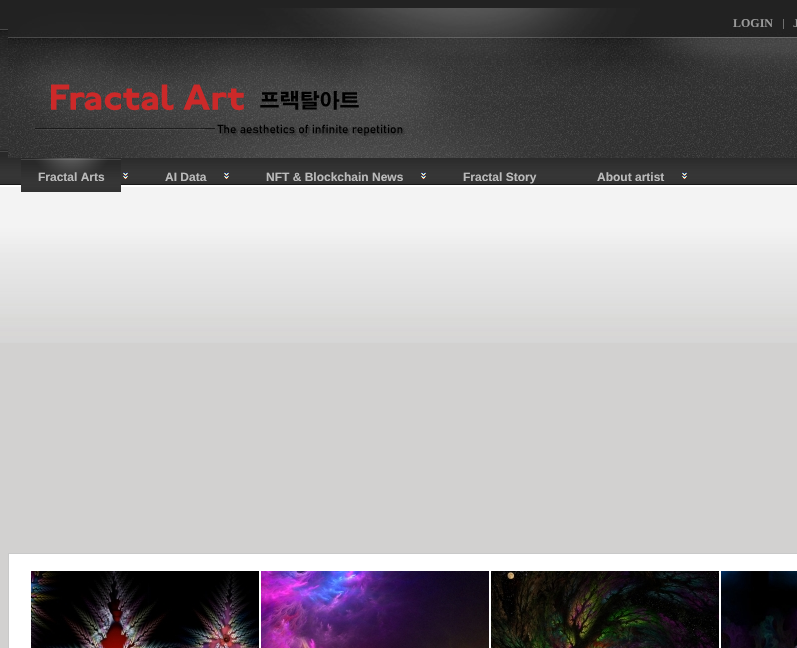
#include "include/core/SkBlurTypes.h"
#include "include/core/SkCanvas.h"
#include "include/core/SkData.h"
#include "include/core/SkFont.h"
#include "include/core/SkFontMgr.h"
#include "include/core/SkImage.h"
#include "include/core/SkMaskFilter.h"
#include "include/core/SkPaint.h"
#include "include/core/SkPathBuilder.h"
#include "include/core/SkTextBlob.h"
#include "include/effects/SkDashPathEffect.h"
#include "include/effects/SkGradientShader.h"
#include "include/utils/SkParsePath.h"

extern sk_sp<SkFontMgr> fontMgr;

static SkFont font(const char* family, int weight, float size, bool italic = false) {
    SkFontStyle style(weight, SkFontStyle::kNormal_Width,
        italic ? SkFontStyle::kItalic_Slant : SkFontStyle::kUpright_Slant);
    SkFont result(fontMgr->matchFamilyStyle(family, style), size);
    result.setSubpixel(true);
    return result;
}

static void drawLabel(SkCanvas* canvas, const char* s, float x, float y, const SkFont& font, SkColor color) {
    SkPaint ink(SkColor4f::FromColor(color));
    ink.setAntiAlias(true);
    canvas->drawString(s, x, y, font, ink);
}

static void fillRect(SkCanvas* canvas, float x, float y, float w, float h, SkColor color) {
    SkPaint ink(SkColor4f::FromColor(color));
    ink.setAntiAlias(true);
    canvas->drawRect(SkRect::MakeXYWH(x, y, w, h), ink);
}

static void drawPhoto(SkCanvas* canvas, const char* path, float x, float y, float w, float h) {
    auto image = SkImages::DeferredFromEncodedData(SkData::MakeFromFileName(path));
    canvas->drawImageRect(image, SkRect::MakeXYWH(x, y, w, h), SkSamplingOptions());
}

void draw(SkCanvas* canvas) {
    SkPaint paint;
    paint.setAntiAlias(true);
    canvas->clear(0xFFD2D1D0);
    drawPhoto(canvas, "assets/img1.png", 0, 0, 797, 343);
    drawPhoto(canvas, "assets/img2.png", 8, 8, 789, 150);
    SkFont font1 = font("Liberation Serif", 700, 12);
    drawLabel(canvas, "LOGIN", 733, 27, font1, 0xFF999999);
    fillRect(canvas, 783, 19, 1, 10, 0xFF6F6F6F);
    drawLabel(canvas, "J", 793, 27, font1, 0xFF999999);
    drawPhoto(canvas, "assets/img3.png", 35, 84, 370, 54);
    drawPhoto(canvas, "assets/img4.png", 21, 158, 100, 34);
    drawPhoto(canvas, "assets/img5.png", 123, 172, 5, 7);
    SkFont font2 = font("Liberation Sans", 700, 12);
    drawLabel(canvas, "Fractal Arts", 38, 181, font2, 0xFFBBBBBB);
    drawPhoto(canvas, "assets/img5.png", 224, 172, 5, 7);
    drawLabel(canvas, "AI Data", 165, 181, font2, 0xFFBBBBBB);
    drawPhoto(canvas, "assets/img5.png", 421, 172, 5, 7);
    drawLabel(canvas, "NFT & Blockchain News", 266, 181, font2, 0xFFBBBBBB);
    drawLabel(canvas, "Fractal Story", 463, 181, font2, 0xFFBBBBBB);
    drawPhoto(canvas, "assets/img5.png", 682, 172, 5, 7);
    drawLabel(canvas, "About artist", 597, 181, font2, 0xFFBBBBBB);
    paint.setColor(0xFFFFFFFF);
    canvas->drawRect(SkRect::MakeXYWH(8.5f, 553.5f, 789, 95), paint);
    paint.setStroke(true);
    paint.setStrokeWidth(1);
    paint.setColor(0xFFC9C9C9);
    canvas->drawRect(SkRect::MakeXYWH(8.5f, 553.5f, 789, 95), paint);
    drawPhoto(canvas, "assets/img6.png", 31, 571, 228, 77);
    drawPhoto(canvas, "assets/img7.png", 261, 571, 228, 77);
    drawPhoto(canvas, "assets/img8.png", 491, 571, 228, 77);
    drawPhoto(canvas, "assets/img9.png", 721, 571, 76, 77);
}
